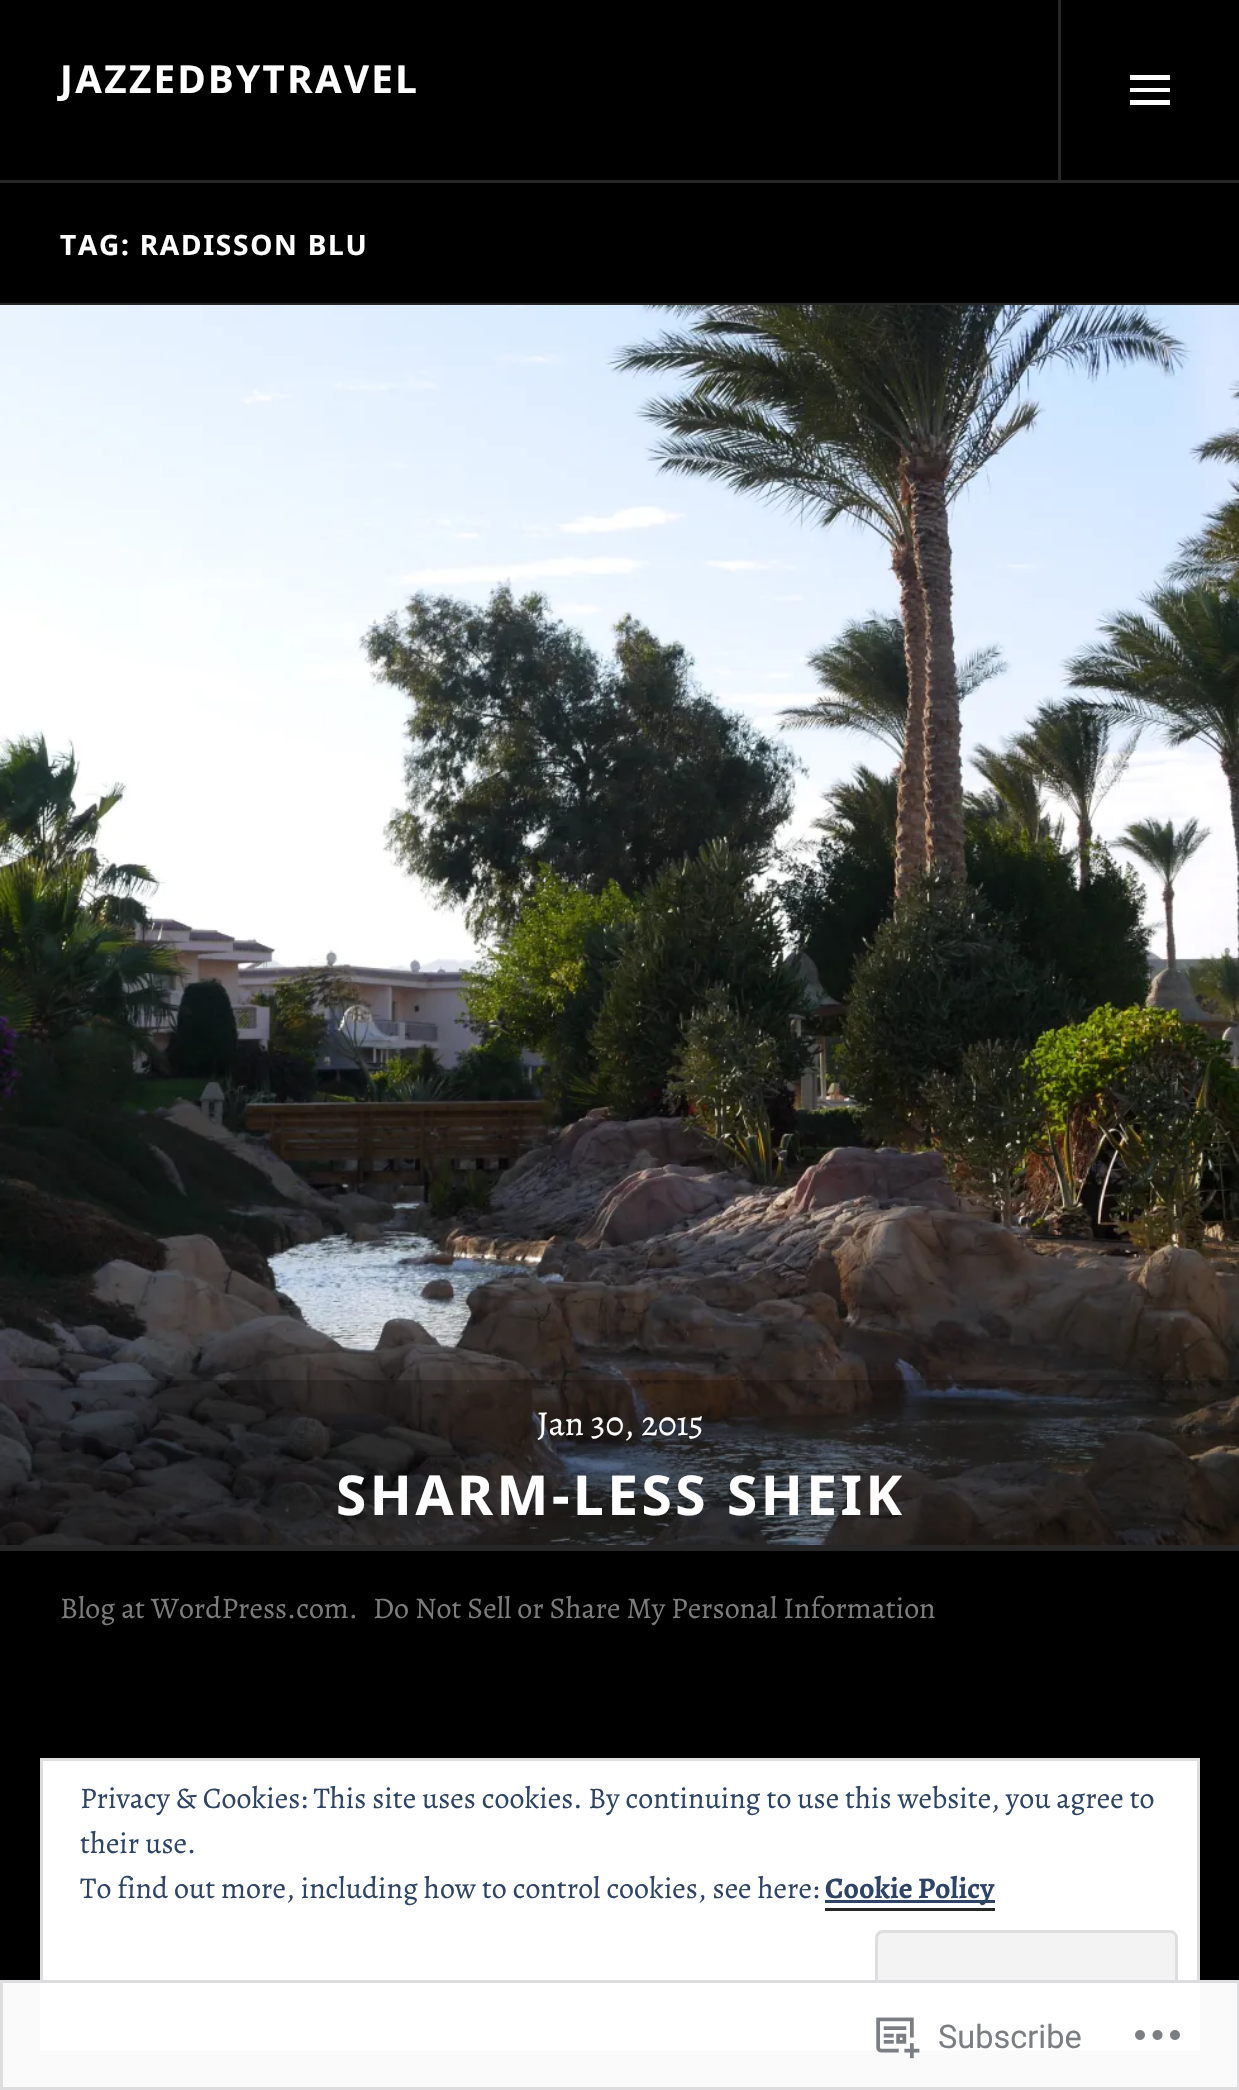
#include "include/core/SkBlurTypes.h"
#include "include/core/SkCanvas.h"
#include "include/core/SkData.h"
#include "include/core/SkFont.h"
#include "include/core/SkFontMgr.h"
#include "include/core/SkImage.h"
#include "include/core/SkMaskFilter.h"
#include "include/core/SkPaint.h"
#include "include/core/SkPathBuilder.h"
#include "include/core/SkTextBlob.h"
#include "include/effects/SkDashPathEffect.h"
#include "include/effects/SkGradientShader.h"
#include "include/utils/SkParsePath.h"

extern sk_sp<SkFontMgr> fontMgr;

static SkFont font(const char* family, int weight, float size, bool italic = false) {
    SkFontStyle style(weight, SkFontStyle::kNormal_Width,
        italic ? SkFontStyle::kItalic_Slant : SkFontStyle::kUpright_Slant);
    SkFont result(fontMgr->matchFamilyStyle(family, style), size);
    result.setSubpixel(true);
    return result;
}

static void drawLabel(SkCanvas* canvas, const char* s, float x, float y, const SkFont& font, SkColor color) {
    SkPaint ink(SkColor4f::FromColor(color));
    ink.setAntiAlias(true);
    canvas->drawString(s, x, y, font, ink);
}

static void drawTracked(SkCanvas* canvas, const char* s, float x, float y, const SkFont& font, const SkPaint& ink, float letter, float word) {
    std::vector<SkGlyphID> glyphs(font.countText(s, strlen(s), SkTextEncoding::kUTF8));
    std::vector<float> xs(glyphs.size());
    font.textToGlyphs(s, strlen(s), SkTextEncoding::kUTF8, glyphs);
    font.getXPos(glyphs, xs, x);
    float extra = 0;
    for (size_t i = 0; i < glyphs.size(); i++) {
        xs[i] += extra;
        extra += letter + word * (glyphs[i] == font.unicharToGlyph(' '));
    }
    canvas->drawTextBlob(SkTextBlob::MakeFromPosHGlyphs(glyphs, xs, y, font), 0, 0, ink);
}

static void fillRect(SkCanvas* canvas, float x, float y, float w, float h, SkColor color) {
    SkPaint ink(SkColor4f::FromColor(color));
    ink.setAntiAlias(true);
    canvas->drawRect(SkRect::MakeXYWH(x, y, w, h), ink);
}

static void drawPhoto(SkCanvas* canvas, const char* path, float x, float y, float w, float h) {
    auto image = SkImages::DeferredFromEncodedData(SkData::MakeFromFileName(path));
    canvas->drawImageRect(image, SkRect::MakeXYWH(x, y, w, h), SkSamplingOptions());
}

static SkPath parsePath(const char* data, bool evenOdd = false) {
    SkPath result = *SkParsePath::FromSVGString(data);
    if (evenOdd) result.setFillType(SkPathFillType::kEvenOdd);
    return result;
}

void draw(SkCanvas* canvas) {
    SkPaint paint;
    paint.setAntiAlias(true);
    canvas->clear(0xFF000000);
    fillRect(canvas, 0, 180, 1239, 3, 0xFF262626);
    SkFont font1 = font("Noto Sans", 700, 38.5f);
    paint.setColor(0xFFFFFFFF);
    drawTracked(canvas, "JAZZEDBYTRAVEL", 60, 93, font1, paint, 2.4f, 0);
    fillRect(canvas, 1058, 0, 3, 180, 0xFF262626);
    canvas->drawPath(parsePath("M1130 105V100H1170V105ZM1130 75H1170V80H1130ZM1130 92V88H1170V92Z"), paint);
    fillRect(canvas, 0, 303, 1239, 2, 0xFF262626);
    SkFont font2 = font("Noto Sans", 700, 28);
    drawTracked(canvas, "TAG: RADISSON BLU", 60, 255, font2, paint, 1.75f, 0);
    drawPhoto(canvas, "assets/img1.png", 0, 305, 1239, 1240);
    fillRect(canvas, 0, 1380, 1239, 165, 0x40000000);
    SkFont font3 = font("Alegreya", 400, 35);
    drawLabel(canvas, "Jan 30, 2015", 537, 1435, font3, 0xFFFFFFFF);
    SkFont font4 = font("Noto Sans", 700, 55);
    drawTracked(canvas, "SHARM-LESS SHEIK", 336, 1515, font4, paint, 3.5f, 0);
    fillRect(canvas, 0, 1545, 1239, 6, 0xFF262626);
    SkFont font5 = font("Alegreya", 400, 30);
    drawLabel(canvas, "Blog at WordPress.com.", 60, 1618, font5, 0xFF7C7C7C);
    drawLabel(canvas, "Do Not Sell or Share My Personal Information", 373, 1618, font5, 0xFF7C7C7C);
    canvas->drawRect(SkRect::MakeXYWH(41.5f, 1759.5f, 1157, 289), paint);
    paint.setStroke(true);
    paint.setStrokeWidth(3);
    paint.setColor(0xFFDEDEDE);
    canvas->drawRect(SkRect::MakeXYWH(41.5f, 1759.5f, 1157, 289), paint);
    drawLabel(canvas, "Privacy & Cookies: This site uses cookies. By continuing to use this website, you agree to", 80, 1808, font5, 0xFF2E4467);
    drawLabel(canvas, "their use.", 80, 1853, font5, 0xFF2E4467);
    drawLabel(canvas, "To find out more, including how to control cookies, see here:", 80, 1898, font5, 0xFF2E4467);
    fillRect(canvas, 825, 1900, 170, 3, 0xFF2E4467);
    SkFont font6 = font("Alegreya", 700, 30);
    drawLabel(canvas, "Cookie Policy", 825, 1898, font6, 0xFF2E4467);
    fillRect(canvas, 825, 1908, 170, 3, 0xFF262626);
    paint.setStroke(false);
    paint.setColor(0xFFF3F3F3);
    canvas->drawRoundRect(SkRect::MakeXYWH(876.5f, 1931.5f, 300, 95), 6.5f, 6.5f, paint);
    paint.setStroke(true);
    paint.setColor(0xFFDEDEDE);
    canvas->drawRoundRect(SkRect::MakeXYWH(876.5f, 1931.5f, 300, 95), 6.5f, 6.5f, paint);
    fillRect(canvas, 0, 1980, 1239, 110, 0xFAFFFFFF);
    paint.setColor(0xFADCDCDE);
    canvas->drawRect(SkRect::MakeXYWH(1.5f, 1981.5f, 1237, 107), paint);
    drawPhoto(canvas, "assets/img2.png", 876, 2017, 44, 42);
    SkFont font7 = font("Roboto", 400, 32.5f);
    drawLabel(canvas, "Subscribe", 938, 2048, font7, 0xFF7B7F84);
    drawPhoto(canvas, "assets/img3.png", 1135, 2030, 45, 10);
}
